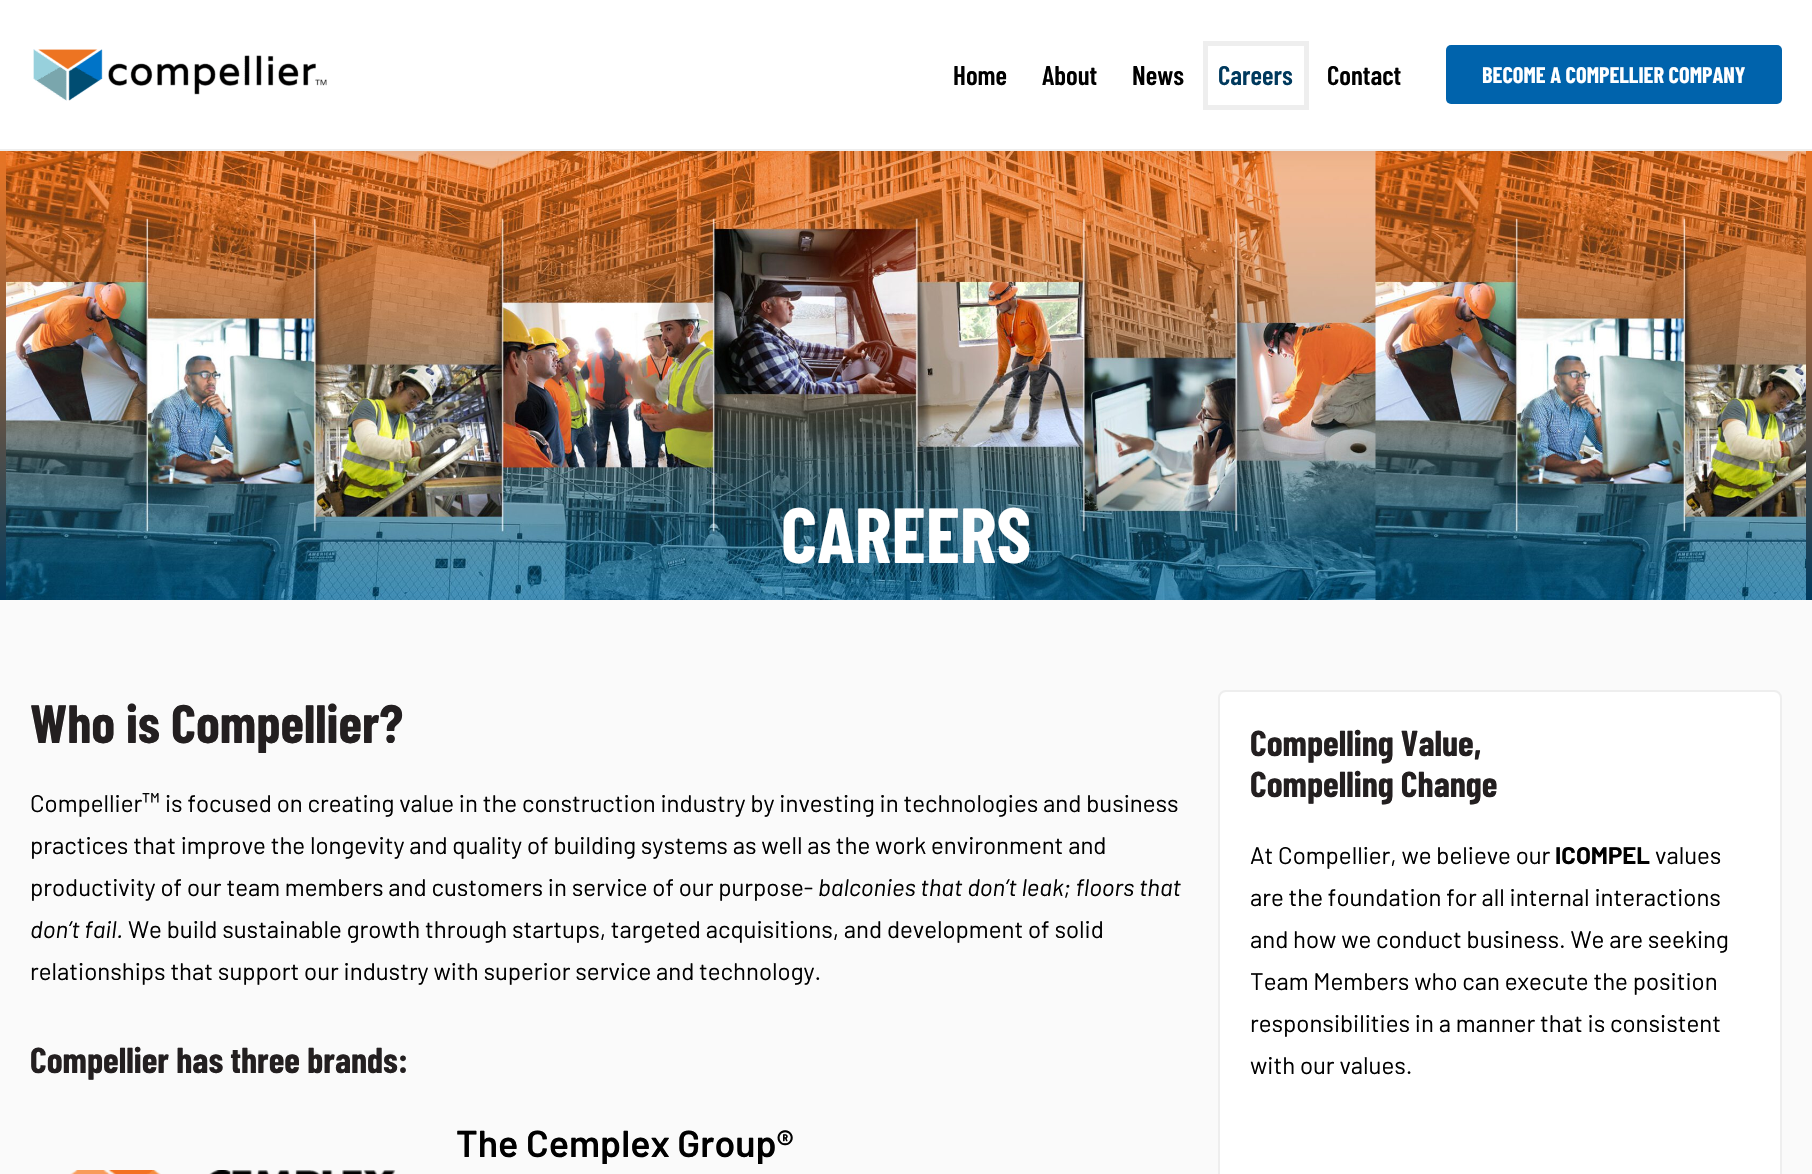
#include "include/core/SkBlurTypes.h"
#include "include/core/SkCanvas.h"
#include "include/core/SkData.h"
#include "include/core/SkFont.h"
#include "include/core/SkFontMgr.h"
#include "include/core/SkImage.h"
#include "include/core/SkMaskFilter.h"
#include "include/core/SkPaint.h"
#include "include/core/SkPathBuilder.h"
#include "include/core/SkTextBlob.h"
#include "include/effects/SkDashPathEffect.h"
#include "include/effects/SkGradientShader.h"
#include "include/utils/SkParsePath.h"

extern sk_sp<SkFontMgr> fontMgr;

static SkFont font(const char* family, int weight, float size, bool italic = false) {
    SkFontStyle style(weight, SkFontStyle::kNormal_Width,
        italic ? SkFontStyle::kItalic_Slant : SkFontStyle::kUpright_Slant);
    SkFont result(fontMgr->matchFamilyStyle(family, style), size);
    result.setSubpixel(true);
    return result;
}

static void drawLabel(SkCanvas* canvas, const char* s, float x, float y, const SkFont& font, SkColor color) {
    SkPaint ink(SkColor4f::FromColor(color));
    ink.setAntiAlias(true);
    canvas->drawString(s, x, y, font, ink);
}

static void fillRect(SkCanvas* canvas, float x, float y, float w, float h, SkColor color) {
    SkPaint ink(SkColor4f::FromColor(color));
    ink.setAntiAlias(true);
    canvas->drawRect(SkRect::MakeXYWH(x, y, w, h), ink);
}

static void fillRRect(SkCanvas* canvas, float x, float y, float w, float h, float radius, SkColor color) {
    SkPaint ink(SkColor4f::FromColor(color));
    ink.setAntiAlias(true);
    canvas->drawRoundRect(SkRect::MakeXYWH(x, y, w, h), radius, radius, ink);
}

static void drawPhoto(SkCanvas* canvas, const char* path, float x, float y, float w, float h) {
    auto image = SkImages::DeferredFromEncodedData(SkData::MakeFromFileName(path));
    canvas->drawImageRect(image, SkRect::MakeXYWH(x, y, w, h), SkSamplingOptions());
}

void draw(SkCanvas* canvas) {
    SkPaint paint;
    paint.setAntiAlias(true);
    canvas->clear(0xFFFAFAFA);
    {
        const SkColor colors[] = {0xFFEF7724, 0xFF00395D};
        const float stops[] = {0, 1};
        const SkPoint ends[] = {{906, 150}, {906, 600}};
        paint.setShader(SkGradientShader::MakeLinear(ends, colors, stops, 2, SkTileMode::kClamp));
        paint.setAlpha(255);
    }
    canvas->drawRect(SkRect::MakeXYWH(0, 151, 1812, 449), paint);
    drawPhoto(canvas, "assets/img2.png", 6, 151, 1800, 449);
    paint.setShader(nullptr);
    paint.setColor(0x1A000000);
    paint.setMaskFilter(SkMaskFilter::MakeBlur(kNormal_SkBlurStyle, 15));
    canvas->drawRect(SkRect::MakeXYWH(0, 0, 1812, 150), paint);
    paint.setMaskFilter(nullptr);
    fillRect(canvas, 0, 0, 1812, 149, 0xFFFFFFFF);
    fillRect(canvas, 0, 149, 1812, 2, 0xFFEEEEEE);
    drawPhoto(canvas, "assets/img1.png", 33, 49, 294, 52);
    SkFont font1 = font("Barlow Condensed", 600, 27);
    drawLabel(canvas, "Home", 953, 85, font1, 0xFF000000);
    drawLabel(canvas, "About", 1042, 85, font1, 0xFF000000);
    drawLabel(canvas, "News", 1132, 85, font1, 0xFF000000);
    fillRect(canvas, 1203, 41, 105, 5, 0xFFEEEEEE);
    fillRect(canvas, 1203, 41, 5, 69, 0xFFEEEEEE);
    fillRect(canvas, 1304, 41, 5, 69, 0xFFEEEEEE);
    fillRect(canvas, 1203, 105, 105, 5, 0xFFEEEEEE);
    drawLabel(canvas, "Careers", 1218, 85, font1, 0xFF00395D);
    drawLabel(canvas, "Contact", 1327, 85, font1, 0xFF000000);
    fillRRect(canvas, 1446, 45, 336, 59, 5, 0xFF0063AC);
    SkFont font2 = font("Barlow Condensed", 700, 22.5f);
    drawLabel(canvas, "BECOME A COMPELLIER COMPANY", 1482, 83, font2, 0xFFFFFFFF);
    SkFont font3 = font("Barlow Condensed", 700, 78);
    drawLabel(canvas, "CAREERS", 781, 563, font3, 0xFFFFFFFF);
    SkFont font4 = font("Barlow Condensed", 700, 54);
    drawLabel(canvas, "Who is Compellier?", 30, 743, font4, 0xFF231F20);
    SkFont font5 = font("Barlow", 400, 24);
    drawLabel(canvas, "Compellier", 30, 812, font5, 0xFF000000);
    SkFont font6 = font("Barlow", 400, 27);
    drawLabel(canvas, "™", 142, 812, font6, 0xFF000000);
    drawLabel(canvas, "is focused on creating value in the construction industry by investing in technologies and business", 165, 812, font5, 0xFF000000);
    drawLabel(canvas, "practices that improve the longevity and quality of building systems as well as the work environment and", 30, 854, font5, 0xFF000000);
    drawLabel(canvas, "productivity of our team members and customers in service of our purpose-", 30, 896, font5, 0xFF000000);
    SkFont font7 = font("Barlow", 400, 24, true);
    drawLabel(canvas, "balconies that don’t leak; floors that", 818, 896, font7, 0xFF000000);
    drawLabel(canvas, "don’t fail.", 30, 938, font7, 0xFF000000);
    drawLabel(canvas, "We build sustainable growth through startups, targeted acquisitions, and development of solid", 128, 938, font5, 0xFF000000);
    drawLabel(canvas, "relationships that support our industry with superior service and technology.", 30, 980, font5, 0xFF000000);
    SkFont font8 = font("Barlow Condensed", 700, 36);
    drawLabel(canvas, "Compellier has three brands:", 30, 1073, font8, 0xFF231F20);
    SkFont font9 = font("Barlow", 600, 37.5f);
    drawLabel(canvas, "The Cemplex Group®", 456, 1157, font9, 0xFF000000);
    drawPhoto(canvas, "assets/img3.png", 70, 1170, 326, 4);
    paint.setColor(0xFFFFFFFF);
    canvas->drawRoundRect(SkRect::MakeXYWH(1219, 691, 562, 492), 7, 7, paint);
    paint.setStroke(true);
    paint.setStrokeWidth(2);
    paint.setColor(0xFFEEEEEE);
    canvas->drawRoundRect(SkRect::MakeXYWH(1219, 691, 562, 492), 7, 7, paint);
    drawLabel(canvas, "Compelling Value,", 1250, 756, font8, 0xFF231F20);
    drawLabel(canvas, "Compelling Change", 1250, 797, font8, 0xFF231F20);
    drawLabel(canvas, "At Compellier, we believe our", 1250, 864, font5, 0xFF000000);
    SkFont font10 = font("Barlow", 700, 24);
    drawLabel(canvas, "ICOMPEL", 1555, 864, font10, 0xFF000000);
    drawLabel(canvas, "values", 1655, 864, font5, 0xFF000000);
    drawLabel(canvas, "are the foundation for all internal interactions", 1250, 906, font5, 0xFF000000);
    drawLabel(canvas, "and how we conduct business. We are seeking", 1250, 948, font5, 0xFF000000);
    drawLabel(canvas, "Team Members who can execute the position", 1250, 990, font5, 0xFF000000);
    drawLabel(canvas, "responsibilities in a manner that is consistent", 1250, 1032, font5, 0xFF000000);
    drawLabel(canvas, "with our values.", 1250, 1074, font5, 0xFF000000);
}
